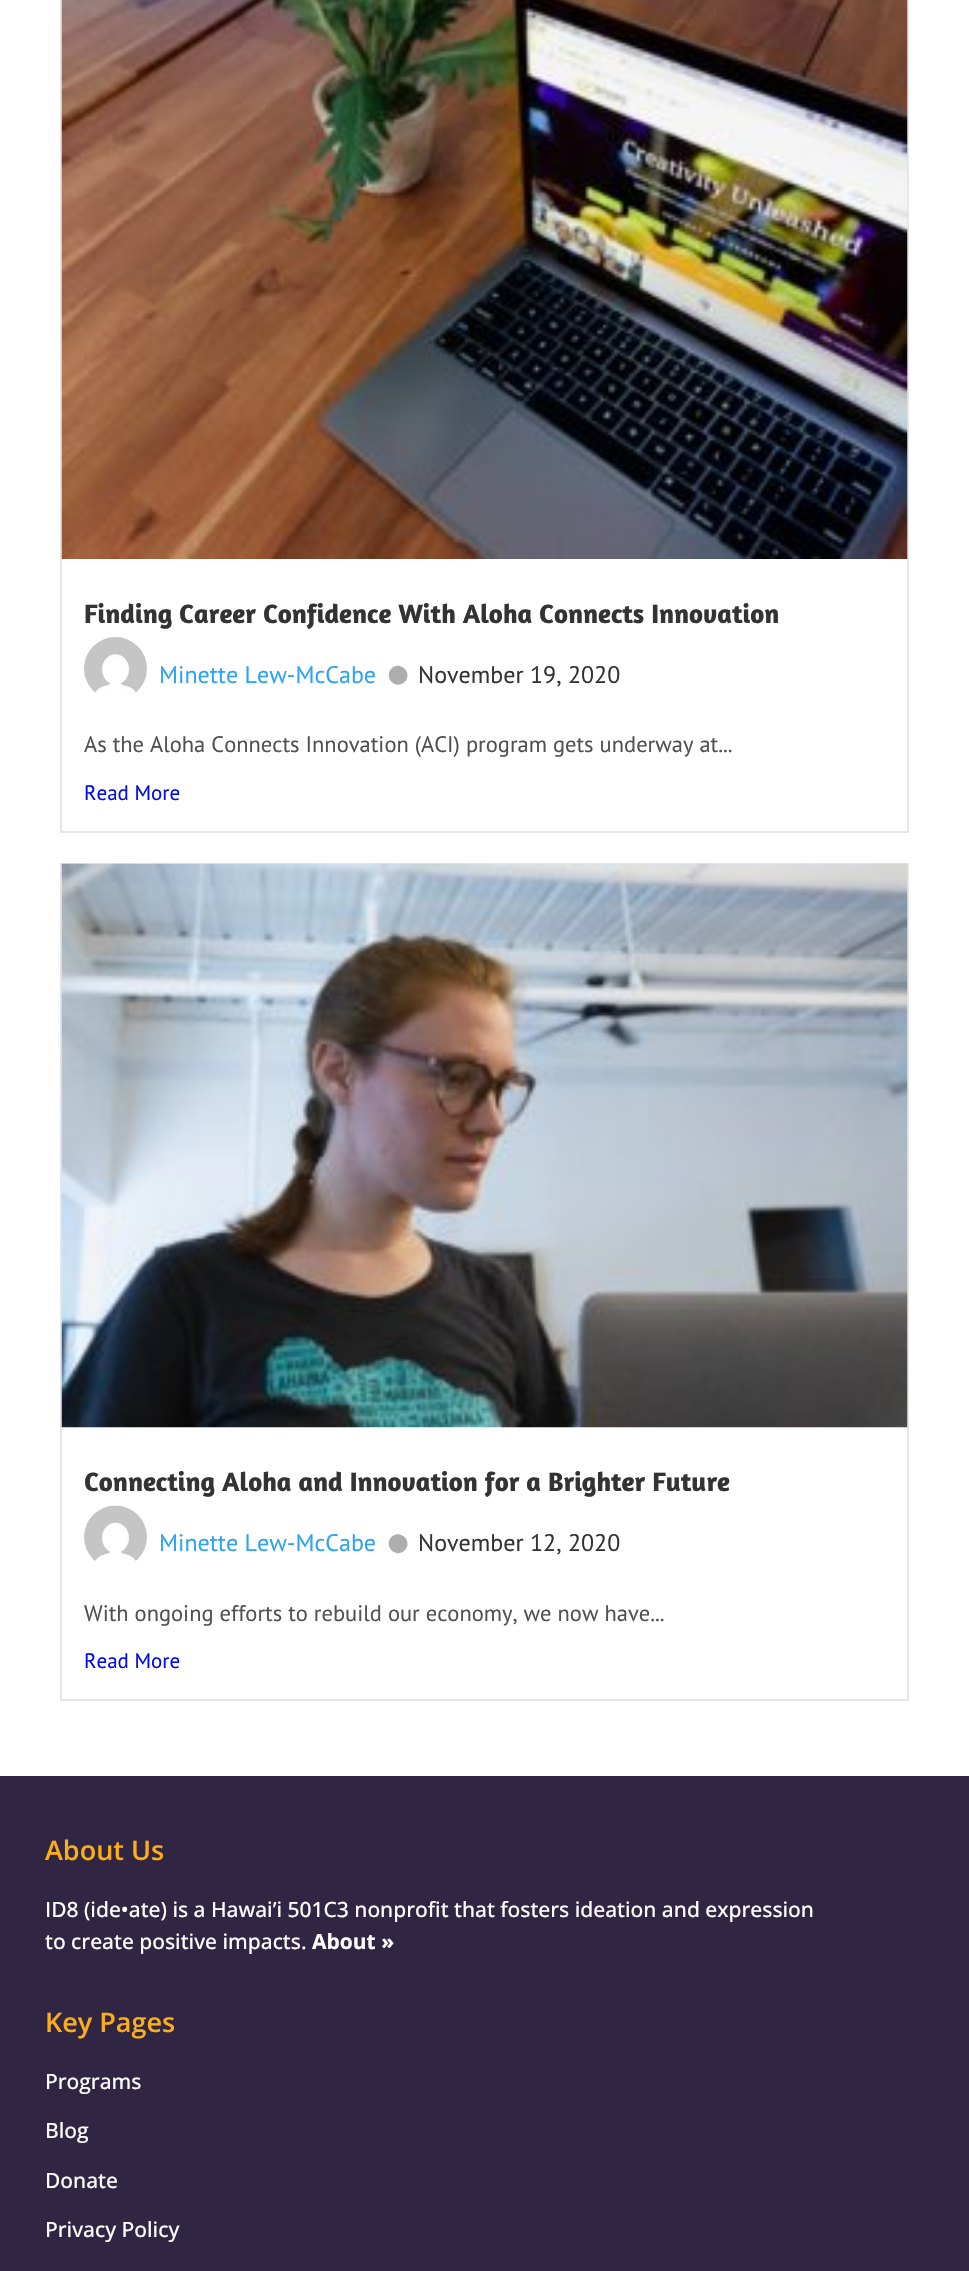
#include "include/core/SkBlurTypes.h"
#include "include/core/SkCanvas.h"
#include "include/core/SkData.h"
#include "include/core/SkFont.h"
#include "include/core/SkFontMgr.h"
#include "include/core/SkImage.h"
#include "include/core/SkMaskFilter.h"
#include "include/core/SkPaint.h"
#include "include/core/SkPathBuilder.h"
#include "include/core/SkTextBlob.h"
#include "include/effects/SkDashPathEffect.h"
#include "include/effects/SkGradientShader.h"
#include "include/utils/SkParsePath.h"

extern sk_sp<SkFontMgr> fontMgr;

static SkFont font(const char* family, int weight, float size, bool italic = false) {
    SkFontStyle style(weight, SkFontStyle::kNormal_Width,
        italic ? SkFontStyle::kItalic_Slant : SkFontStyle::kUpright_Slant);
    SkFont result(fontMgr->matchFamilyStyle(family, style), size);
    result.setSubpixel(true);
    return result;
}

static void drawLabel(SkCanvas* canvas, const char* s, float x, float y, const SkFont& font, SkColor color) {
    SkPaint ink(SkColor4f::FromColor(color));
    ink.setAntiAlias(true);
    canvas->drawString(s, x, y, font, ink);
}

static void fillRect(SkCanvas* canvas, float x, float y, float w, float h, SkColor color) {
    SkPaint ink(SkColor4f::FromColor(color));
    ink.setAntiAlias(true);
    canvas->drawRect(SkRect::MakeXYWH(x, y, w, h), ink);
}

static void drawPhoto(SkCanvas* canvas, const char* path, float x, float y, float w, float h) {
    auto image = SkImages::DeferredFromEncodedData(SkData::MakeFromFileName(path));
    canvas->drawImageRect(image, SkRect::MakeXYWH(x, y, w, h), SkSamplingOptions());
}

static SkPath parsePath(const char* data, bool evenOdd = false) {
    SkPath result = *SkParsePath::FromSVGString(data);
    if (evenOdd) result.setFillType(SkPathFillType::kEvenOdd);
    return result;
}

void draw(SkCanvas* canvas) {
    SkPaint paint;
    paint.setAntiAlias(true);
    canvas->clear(0xFFFFFFFF);
    paint.setStroke(true);
    paint.setStrokeWidth(2);
    paint.setColor(0xFFE6E6E6);
    canvas->drawRect(SkRect::MakeXYWH(61, -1, 847, 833), paint);
    drawPhoto(canvas, "assets/img1.png", 61, 0, 847, 559);
    SkFont font1 = font("Amaranth", 700, 27);
    drawLabel(canvas, "Finding Career Confidence With Aloha Connects Innovation", 84, 623, font1, 0xFF333333);
    drawPhoto(canvas, "assets/img2.png", 84, 637, 63, 56);
    SkFont font2 = font("PT Sans", 400, 24);
    drawLabel(canvas, "Minette Lew-McCabe", 159, 683, font2, 0xFF2EA3F2);
    paint.setStroke(false);
    paint.setColor(0xFFADADAD);
    canvas->drawPath(parsePath("M391.5 668.5C400 660 413.5 673 404.5 682C396 690.5 383 677.5 391.5 668.5Z"), paint);
    drawLabel(canvas, "November 19, 2020", 418, 683, font2, 0xFF333333);
    SkFont font3 = font("PT Sans", 400, 22.5f);
    drawLabel(canvas, "As the Aloha Connects Innovation (ACI) program gets underway at...", 84, 752, font3, 0xFF515151);
    SkFont font4 = font("PT Sans", 400, 21);
    drawLabel(canvas, "Read More", 84, 800, font4, 0xFF000BEC);
    paint.setStroke(true);
    paint.setColor(0xFFE6E6E6);
    canvas->drawRect(SkRect::MakeXYWH(61, 864, 847, 836), paint);
    drawPhoto(canvas, "assets/img3.png", 61, 863, 847, 565);
    drawLabel(canvas, "Connecting Aloha and Innovation for a Brighter Future", 84, 1491, font1, 0xFF333333);
    drawPhoto(canvas, "assets/img4.png", 84, 1505, 63, 56);
    drawLabel(canvas, "Minette Lew-McCabe", 159, 1551, font2, 0xFF2EA3F2);
    paint.setStroke(false);
    paint.setColor(0xFFADADAD);
    canvas->drawPath(parsePath("M391.5 1537C400 1528.5 413.5 1541.5 404.5 1550.5C396 1559 383 1546 391.5 1537Z"), paint);
    drawLabel(canvas, "November 12, 2020", 418, 1551, font2, 0xFF333333);
    drawLabel(canvas, "With ongoing efforts to rebuild our economy, we now have...", 84, 1621, font3, 0xFF515151);
    drawLabel(canvas, "Read More", 84, 1668, font4, 0xFF000BEC);
    fillRect(canvas, 0, 1776, 969, 495, 0xFF302644);
    SkFont font5 = font("Open Sans", 600, 27);
    drawLabel(canvas, "About Us", 45, 1860, font5, 0xFFFBAE18);
    SkFont font6 = font("Open Sans", 500, 21);
    drawLabel(canvas, "ID8 (ide•ate) is a Hawai’i 501C3 nonprofit that fosters ideation and expression", 45, 1917, font6, 0xFFFFFFFF);
    drawLabel(canvas, "to create positive impacts.", 45, 1949, font6, 0xFFFFFFFF);
    SkFont font7 = font("Open Sans", 700, 21);
    drawLabel(canvas, "About »", 312, 1949, font7, 0xFFFFFFFF);
    drawLabel(canvas, "Key Pages", 45, 2032, font5, 0xFFFBAE18);
    drawLabel(canvas, "Programs", 45, 2089, font6, 0xFFFFFFFF);
    drawLabel(canvas, "Blog", 45, 2138, font6, 0xFFFFFFFF);
    drawLabel(canvas, "Donate", 45, 2188, font6, 0xFFFFFFFF);
    drawLabel(canvas, "Privacy Policy", 45, 2237, font6, 0xFFFFFFFF);
}
